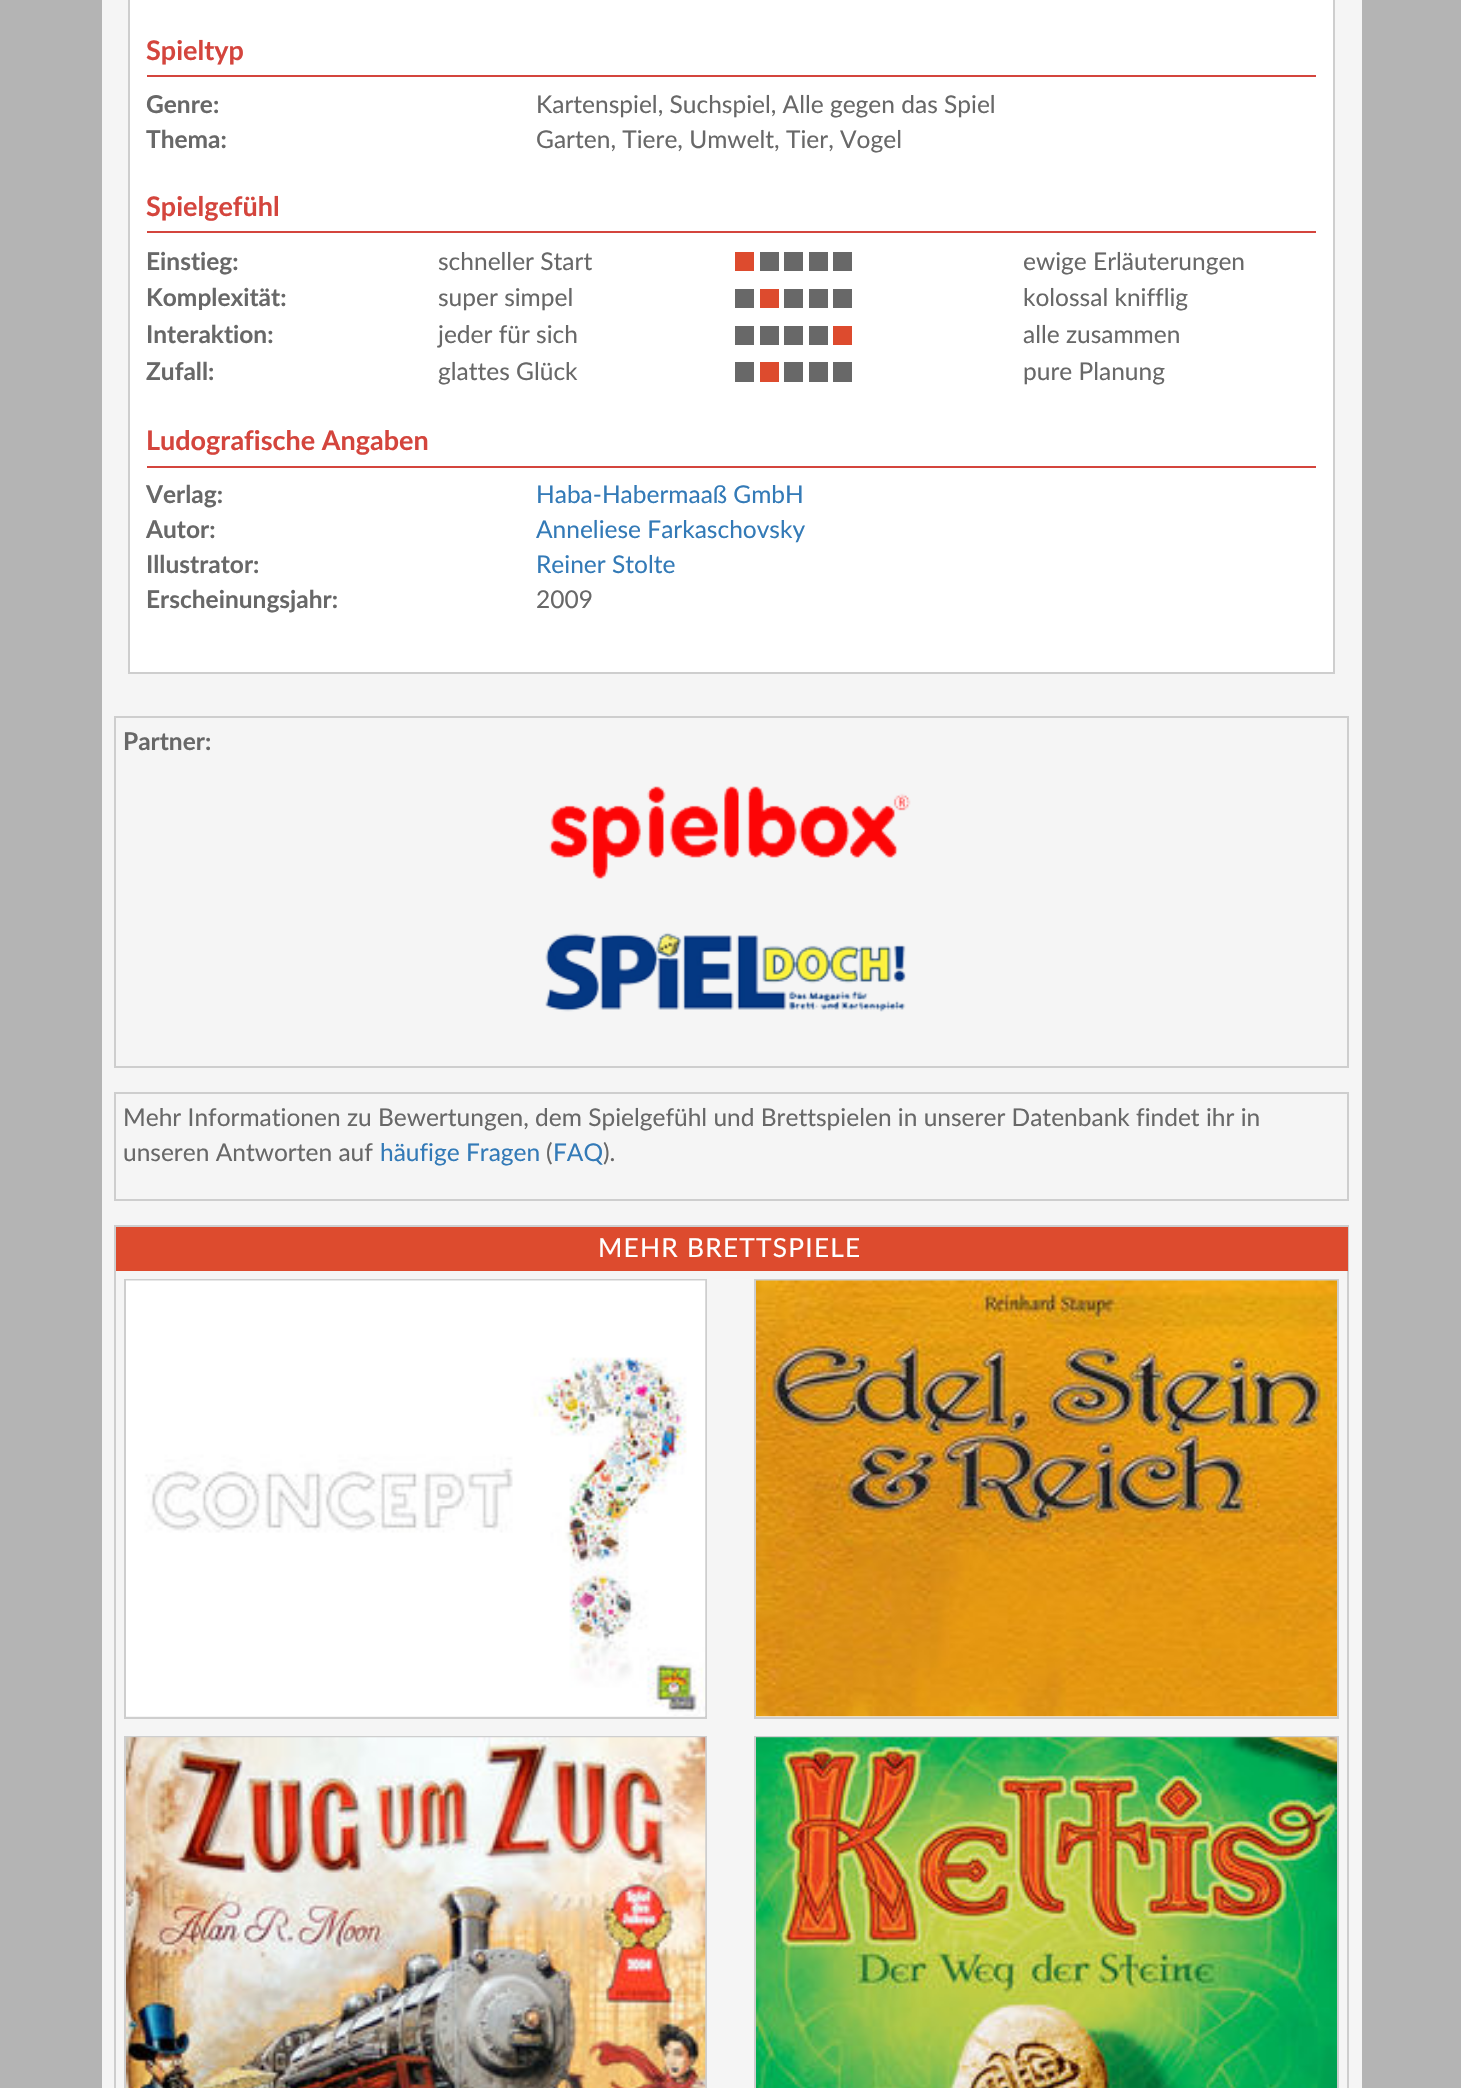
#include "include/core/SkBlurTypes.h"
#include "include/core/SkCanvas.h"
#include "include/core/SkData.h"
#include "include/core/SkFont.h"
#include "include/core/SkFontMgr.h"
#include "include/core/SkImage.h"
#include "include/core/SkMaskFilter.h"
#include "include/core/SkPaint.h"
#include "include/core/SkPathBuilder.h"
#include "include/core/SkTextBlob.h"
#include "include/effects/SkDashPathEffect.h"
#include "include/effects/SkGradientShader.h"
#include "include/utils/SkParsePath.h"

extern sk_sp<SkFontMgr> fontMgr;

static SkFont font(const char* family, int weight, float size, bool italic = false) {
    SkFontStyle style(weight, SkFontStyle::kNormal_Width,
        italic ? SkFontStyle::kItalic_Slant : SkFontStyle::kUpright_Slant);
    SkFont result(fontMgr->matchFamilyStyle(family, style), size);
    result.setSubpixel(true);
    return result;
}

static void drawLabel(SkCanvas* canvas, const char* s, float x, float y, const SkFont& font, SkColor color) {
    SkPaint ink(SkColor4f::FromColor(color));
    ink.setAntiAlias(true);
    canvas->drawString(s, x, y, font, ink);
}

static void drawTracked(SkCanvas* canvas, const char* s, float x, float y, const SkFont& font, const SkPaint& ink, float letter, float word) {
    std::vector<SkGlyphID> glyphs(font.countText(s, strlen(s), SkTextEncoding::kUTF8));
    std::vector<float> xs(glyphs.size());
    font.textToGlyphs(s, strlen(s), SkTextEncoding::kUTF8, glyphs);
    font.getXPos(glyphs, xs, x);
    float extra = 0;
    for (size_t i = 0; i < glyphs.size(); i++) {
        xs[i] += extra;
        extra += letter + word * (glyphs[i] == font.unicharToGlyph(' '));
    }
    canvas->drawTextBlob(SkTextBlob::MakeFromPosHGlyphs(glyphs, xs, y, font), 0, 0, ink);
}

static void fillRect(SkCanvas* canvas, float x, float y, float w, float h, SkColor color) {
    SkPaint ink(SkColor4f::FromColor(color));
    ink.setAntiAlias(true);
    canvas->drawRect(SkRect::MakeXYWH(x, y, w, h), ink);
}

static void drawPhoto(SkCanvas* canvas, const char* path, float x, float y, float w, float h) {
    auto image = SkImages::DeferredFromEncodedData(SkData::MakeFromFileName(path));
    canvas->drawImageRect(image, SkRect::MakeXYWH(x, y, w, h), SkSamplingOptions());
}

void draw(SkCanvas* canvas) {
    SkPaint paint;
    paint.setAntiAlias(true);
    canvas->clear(0xFFB4B4B4);
    fillRect(canvas, 102, 0, 1260, 2088, 0xFFF5F5F5);
    paint.setColor(0xFFFFFFFF);
    canvas->drawRect(SkRect::MakeXYWH(129, -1, 1205, 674), paint);
    paint.setStroke(true);
    paint.setStrokeWidth(2);
    paint.setColor(0xFFCECECE);
    canvas->drawRect(SkRect::MakeXYWH(129, -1, 1205, 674), paint);
    fillRect(canvas, 147, 75, 1169, 2, 0xFFD4453D);
    SkFont font1 = font("Lato", 700, 27);
    drawLabel(canvas, "Spieltyp", 146, 60, font1, 0xFFD4453D);
    SkFont font2 = font("Lato", 700, 24.5f);
    drawLabel(canvas, "Genre:", 146, 113, font2, 0xFF686868);
    SkFont font3 = font("Lato", 400, 24.5f);
    drawLabel(canvas, "Kartenspiel, Suchspiel, Alle gegen das Spiel", 536, 113, font3, 0xFF686868);
    drawLabel(canvas, "Thema:", 146, 148, font2, 0xFF686868);
    drawLabel(canvas, "Garten, Tiere, Umwelt, Tier, Vogel", 536, 148, font3, 0xFF686868);
    fillRect(canvas, 147, 231, 1169, 2, 0xFFD4453D);
    drawLabel(canvas, "Spielgefühl", 146, 216, font1, 0xFFD4453D);
    drawLabel(canvas, "Einstieg:", 146, 270, font2, 0xFF686868);
    drawLabel(canvas, "schneller Start", 438, 270, font3, 0xFF686868);
    fillRect(canvas, 735, 252, 19, 19, 0xFFDD4B2E);
    fillRect(canvas, 760, 252, 19, 19, 0xFF686868);
    fillRect(canvas, 784, 252, 19, 19, 0xFF686868);
    fillRect(canvas, 809, 252, 19, 19, 0xFF686868);
    fillRect(canvas, 833, 252, 19, 19, 0xFF686868);
    drawLabel(canvas, "ewige Erläuterungen", 1023, 270, font3, 0xFF686868);
    drawLabel(canvas, "Komplexität:", 146, 306, font2, 0xFF686868);
    drawLabel(canvas, "super simpel", 438, 306, font3, 0xFF686868);
    fillRect(canvas, 735, 289, 19, 19, 0xFF686868);
    fillRect(canvas, 760, 289, 19, 19, 0xFFDD4B2E);
    fillRect(canvas, 784, 289, 19, 19, 0xFF686868);
    fillRect(canvas, 809, 289, 19, 19, 0xFF686868);
    fillRect(canvas, 833, 289, 19, 19, 0xFF686868);
    drawLabel(canvas, "kolossal knifflig", 1023, 306, font3, 0xFF686868);
    drawLabel(canvas, "Interaktion:", 146, 343, font2, 0xFF686868);
    drawLabel(canvas, "jeder für sich", 438, 343, font3, 0xFF686868);
    fillRect(canvas, 735, 326, 19, 19, 0xFF686868);
    fillRect(canvas, 760, 326, 19, 19, 0xFF686868);
    fillRect(canvas, 784, 326, 19, 19, 0xFF686868);
    fillRect(canvas, 809, 326, 19, 19, 0xFF686868);
    fillRect(canvas, 833, 326, 19, 19, 0xFFDD4B2E);
    drawLabel(canvas, "alle zusammen", 1023, 343, font3, 0xFF686868);
    drawLabel(canvas, "Zufall:", 146, 380, font2, 0xFF686868);
    drawLabel(canvas, "glattes Glück", 438, 380, font3, 0xFF686868);
    fillRect(canvas, 735, 362, 19, 20, 0xFF686868);
    fillRect(canvas, 760, 362, 19, 20, 0xFFDD4B2E);
    fillRect(canvas, 784, 362, 19, 20, 0xFF686868);
    fillRect(canvas, 809, 362, 19, 20, 0xFF686868);
    fillRect(canvas, 833, 362, 19, 20, 0xFF686868);
    drawLabel(canvas, "pure Planung", 1023, 380, font3, 0xFF686868);
    fillRect(canvas, 147, 466, 1169, 2, 0xFFD4453D);
    drawLabel(canvas, "Ludografische Angaben", 146, 450, font1, 0xFFD4453D);
    drawLabel(canvas, "Verlag:", 146, 503, font2, 0xFF686868);
    drawLabel(canvas, "Haba-Habermaaß GmbH", 536, 503, font3, 0xFF337AB7);
    drawLabel(canvas, "Autor:", 146, 538, font2, 0xFF686868);
    drawLabel(canvas, "Anneliese Farkaschovsky", 536, 538, font3, 0xFF337AB7);
    drawLabel(canvas, "Illustrator:", 146, 573, font2, 0xFF686868);
    drawLabel(canvas, "Reiner Stolte", 536, 573, font3, 0xFF337AB7);
    drawLabel(canvas, "Erscheinungsjahr:", 146, 608, font2, 0xFF686868);
    drawLabel(canvas, "2009", 536, 608, font3, 0xFF686868);
    canvas->drawRect(SkRect::MakeXYWH(115, 717, 1233, 350), paint);
    drawLabel(canvas, "Partner:", 123, 750, font2, 0xFF686868);
    drawPhoto(canvas, "assets/img1.png", 549, 786, 362, 93);
    drawPhoto(canvas, "assets/img2.png", 545, 932, 361, 80);
    canvas->drawRect(SkRect::MakeXYWH(115, 1093, 1233, 107), paint);
    drawLabel(canvas, "Mehr Informationen zu Bewertungen, dem Spielgefühl und Brettspielen in unserer Datenbank findet ihr in", 123, 1126, font3, 0xFF686868);
    drawLabel(canvas, "unseren Antworten auf", 123, 1161, font3, 0xFF686868);
    drawLabel(canvas, "häufige Fragen", 380, 1161, font3, 0xFF337AB7);
    drawLabel(canvas, "(", 546, 1161, font3, 0xFF686868);
    drawLabel(canvas, "FAQ", 553, 1161, font3, 0xFF337AB7);
    drawLabel(canvas, ").", 603, 1161, font3, 0xFF686868);
    canvas->drawRect(SkRect::MakeXYWH(115, 1226, 1233, 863), paint);
    fillRect(canvas, 116, 1227, 1232, 44, 0xFFDD4B2E);
    SkFont font4 = font("Lato", 400, 26.25f);
    paint.setStroke(false);
    paint.setColor(0xFFFFFFFF);
    drawTracked(canvas, "MEHR BRETTSPIELE", 598, 1257, font4, paint, 1.25f, 0);
    paint.setStroke(true);
    paint.setColor(0xFFCECECE);
    canvas->drawRect(SkRect::MakeXYWH(125, 1280, 581, 438), paint);
    drawPhoto(canvas, "assets/img3.png", 126, 1280, 580, 436);
    canvas->drawRect(SkRect::MakeXYWH(755, 1280, 583, 438), paint);
    drawPhoto(canvas, "assets/img4.png", 756, 1280, 581, 437);
    canvas->drawRect(SkRect::MakeXYWH(125, 1737, 581, 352), paint);
    drawPhoto(canvas, "assets/img5.png", 126, 1737, 580, 351);
    canvas->drawRect(SkRect::MakeXYWH(755, 1737, 583, 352), paint);
    drawPhoto(canvas, "assets/img6.png", 756, 1737, 581, 351);
}
